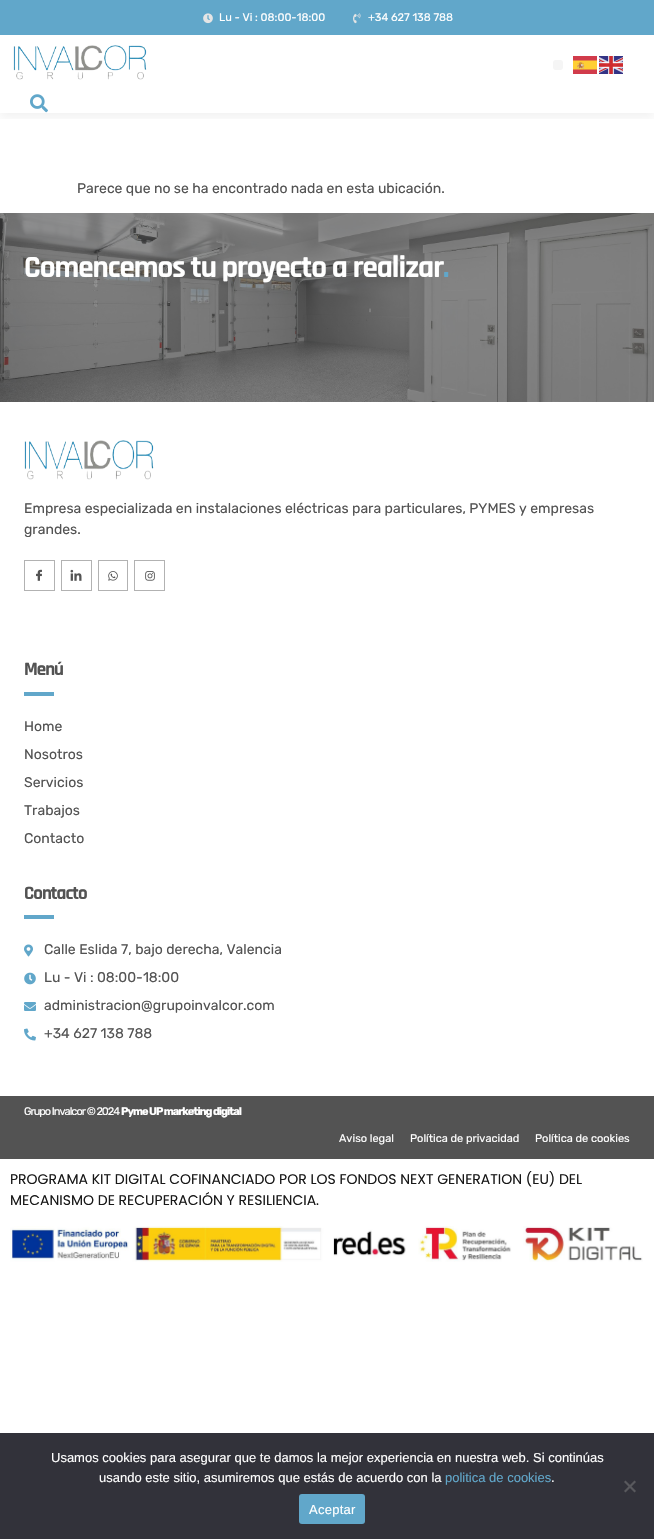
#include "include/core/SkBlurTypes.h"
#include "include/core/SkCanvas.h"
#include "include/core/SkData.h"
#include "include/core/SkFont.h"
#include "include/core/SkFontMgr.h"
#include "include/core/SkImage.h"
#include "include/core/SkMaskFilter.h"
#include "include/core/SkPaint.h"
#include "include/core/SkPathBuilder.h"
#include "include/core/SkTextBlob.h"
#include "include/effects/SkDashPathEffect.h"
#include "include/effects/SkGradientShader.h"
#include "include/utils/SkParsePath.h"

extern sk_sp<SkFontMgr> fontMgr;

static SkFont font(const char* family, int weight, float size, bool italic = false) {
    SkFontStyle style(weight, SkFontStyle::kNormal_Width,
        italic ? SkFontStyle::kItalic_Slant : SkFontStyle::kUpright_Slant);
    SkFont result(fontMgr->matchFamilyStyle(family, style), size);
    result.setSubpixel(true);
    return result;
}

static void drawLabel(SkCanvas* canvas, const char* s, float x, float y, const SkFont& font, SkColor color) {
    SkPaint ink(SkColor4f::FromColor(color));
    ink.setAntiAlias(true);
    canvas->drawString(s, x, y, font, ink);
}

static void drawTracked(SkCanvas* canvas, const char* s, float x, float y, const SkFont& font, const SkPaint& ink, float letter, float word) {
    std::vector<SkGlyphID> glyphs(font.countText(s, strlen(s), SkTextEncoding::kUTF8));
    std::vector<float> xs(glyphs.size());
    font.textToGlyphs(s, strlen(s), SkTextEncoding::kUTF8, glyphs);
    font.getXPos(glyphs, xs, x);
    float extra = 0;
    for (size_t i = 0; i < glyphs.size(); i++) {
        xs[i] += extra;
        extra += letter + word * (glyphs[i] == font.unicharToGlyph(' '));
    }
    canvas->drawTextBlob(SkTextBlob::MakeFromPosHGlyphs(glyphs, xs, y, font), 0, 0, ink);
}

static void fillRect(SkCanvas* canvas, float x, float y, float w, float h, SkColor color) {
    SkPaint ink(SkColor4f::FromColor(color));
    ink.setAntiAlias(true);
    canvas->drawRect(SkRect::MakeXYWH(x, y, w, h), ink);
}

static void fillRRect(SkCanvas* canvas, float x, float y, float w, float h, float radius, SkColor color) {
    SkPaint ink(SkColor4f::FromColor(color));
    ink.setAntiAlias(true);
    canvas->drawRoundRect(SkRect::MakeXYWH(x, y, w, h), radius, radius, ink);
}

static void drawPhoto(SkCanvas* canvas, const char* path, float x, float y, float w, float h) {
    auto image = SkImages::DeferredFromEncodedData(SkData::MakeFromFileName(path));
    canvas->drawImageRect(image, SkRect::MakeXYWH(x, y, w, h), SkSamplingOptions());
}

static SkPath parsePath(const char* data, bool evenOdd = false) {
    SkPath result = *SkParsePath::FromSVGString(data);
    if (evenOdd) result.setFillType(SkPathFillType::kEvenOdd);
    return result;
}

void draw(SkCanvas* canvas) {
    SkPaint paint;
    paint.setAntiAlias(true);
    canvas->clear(0xFFFFFFFF);
    fillRect(canvas, 0, 0, 654, 35, 0xFF61A7CA);
    drawPhoto(canvas, "assets/img1.png", 203, 13, 10, 11);
    SkFont font1 = font("Rubik", 400, 11);
    drawLabel(canvas, "Lu - Vi : 08:00-18:00", 219, 21, font1, 0xFFFFFFFF);
    drawPhoto(canvas, "assets/img2.png", 353, 13, 8, 11);
    drawLabel(canvas, "+34 627 138 788", 368, 21, font1, 0xFFFFFFFF);
    canvas->save();
    canvas->clipRect(SkRect::MakeXYWH(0, 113, 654, 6));
    paint.setColor(0x0D000000);
    paint.setMaskFilter(SkMaskFilter::MakeBlur(kNormal_SkBlurStyle, 5));
    canvas->drawRect(SkRect::MakeXYWH(0, 40, 654, 78), paint);
    paint.setMaskFilter(nullptr);
    canvas->restore();
    drawPhoto(canvas, "assets/img3.png", 13, 45, 134, 35);
    fillRRect(canvas, 553, 60, 10, 10, 3, 0xFFF5F5F5);
    drawPhoto(canvas, "assets/img4.png", 573, 56, 24, 18);
    drawPhoto(canvas, "assets/img5.png", 599, 56, 24, 18);
    drawPhoto(canvas, "assets/img6.png", 30, 94, 18, 19);
    SkFont font2 = font("Rubik", 400, 14);
    drawLabel(canvas, "Parece que no se ha encontrado nada en esta ubicación.", 77, 193, font2, 0xFF535353);
    drawPhoto(canvas, "assets/img7.png", 0, 213, 654, 189);
    SkFont font3 = font("Rajdhani", 700, 31);
    paint.setColor(0xFFFFFFFF);
    drawTracked(canvas, "Comencemos tu proyecto a realizar", 24, 277, font3, paint, -1, 0);
    paint.setColor(0xFF61A7CA);
    drawTracked(canvas, ".", 443, 277, font3, paint, -1, 0);
    drawPhoto(canvas, "assets/img8.png", 24, 440, 130, 40);
    drawLabel(canvas, "Empresa especializada en instalaciones eléctricas para particulares, PYMES y empresas", 24, 513, font2, 0xFF535353);
    drawLabel(canvas, "grandes.", 24, 534, font2, 0xFF535353);
    paint.setStroke(true);
    paint.setStrokeWidth(1);
    paint.setColor(0xFFB2B2B2);
    canvas->drawRect(SkRect::MakeXYWH(24.5f, 560.5f, 30, 30), paint);
    drawPhoto(canvas, "assets/img9.png", 36, 569, 6, 12);
    canvas->drawRect(SkRect::MakeXYWH(61.5f, 560.5f, 30, 30), paint);
    drawPhoto(canvas, "assets/img10.png", 70, 569, 12, 12);
    canvas->drawRect(SkRect::MakeXYWH(98.5f, 560.5f, 29, 30), paint);
    drawPhoto(canvas, "assets/img11.png", 108, 571, 10, 10);
    canvas->drawRect(SkRect::MakeXYWH(134.5f, 560.5f, 30, 30), paint);
    drawPhoto(canvas, "assets/img12.png", 145, 571, 10, 10);
    SkFont font4 = font("Rajdhani", 700, 19);
    paint.setStroke(false);
    paint.setColor(0xFF535353);
    drawTracked(canvas, "Menú", 24, 675, font4, paint, -1, 0);
    fillRect(canvas, 24, 692, 30, 4, 0xFF61A7CA);
    drawLabel(canvas, "Home", 24, 731, font2, 0xFF535353);
    drawLabel(canvas, "Nosotros", 24, 759, font2, 0xFF535353);
    drawLabel(canvas, "Servicios", 24, 787, font2, 0xFF535353);
    drawLabel(canvas, "Trabajos", 24, 815, font2, 0xFF535353);
    drawLabel(canvas, "Contacto", 24, 843, font2, 0xFF535353);
    drawTracked(canvas, "Contacto", 24, 899, font4, paint, -1, 0);
    fillRect(canvas, 24, 915, 30, 4, 0xFF61A7CA);
    drawPhoto(canvas, "assets/img13.png", 24, 944, 9, 13);
    drawLabel(canvas, "Calle Eslida 7, bajo derecha, Valencia", 44, 954, font2, 0xFF535353);
    drawPhoto(canvas, "assets/img14.png", 24, 972, 12, 13);
    drawLabel(canvas, "Lu - Vi : 08:00-18:00", 44, 982, font2, 0xFF535353);
    drawPhoto(canvas, "assets/img15.png", 24, 1002, 12, 9);
    drawLabel(canvas, "administracion@grupoinvalcor.com", 44, 1010, font2, 0xFF535353);
    drawPhoto(canvas, "assets/img16.png", 24, 1028, 12, 13);
    drawLabel(canvas, "+34 627 138 788", 44, 1038, font2, 0xFF535353);
    fillRect(canvas, 0, 1096, 654, 63, 0xFF535353);
    paint.setColor(0xFFFFFFFF);
    drawTracked(canvas, "Grupo Invalcor © 2024", 24, 1115, font1, paint, -1, 0);
    SkFont font5 = font("Rubik", 700, 11);
    drawTracked(canvas, "Pyme UP marketing digital", 121, 1115, font5, paint, -1, 0);
    drawLabel(canvas, "Aviso legal", 339, 1142, font1, 0xFFFFFFFF);
    drawLabel(canvas, "Política de privacidad", 410, 1142, font1, 0xFFFFFFFF);
    drawLabel(canvas, "Política de cookies", 535, 1142, font1, 0xFFFFFFFF);
    SkFont font6 = font("Poppins", 400, 14);
    drawLabel(canvas, "PROGRAMA KIT DIGITAL COFINANCIADO POR LOS FONDOS NEXT GENERATION (EU) DEL", 10, 1184, font6, 0xFF181818);
    drawLabel(canvas, "MECANISMO DE RECUPERACIÓN Y RESILIENCIA.", 10, 1205, font6, 0xFF181818);
    drawPhoto(canvas, "assets/img17.png", 10, 1226, 633, 36);
    fillRect(canvas, 0, 1433, 654, 106, 0xFF32323A);
    SkFont font7 = font("Liberation Sans", 400, 13);
    drawLabel(canvas, "Usamos cookies para asegurar que te damos la mejor experiencia en nuestra web. Si continúas", 51, 1462, font7, 0xFFFFFFFF);
    drawLabel(canvas, "usando este sitio, asumiremos que estás de acuerdo con la", 99, 1482, font7, 0xFFFFFFFF);
    drawLabel(canvas, "politica de cookies", 445, 1482, font7, 0xFF61A7CA);
    drawLabel(canvas, ".", 551, 1482, font7, 0xFFFFFFFF);
    paint.setColor(0xFF59595D);
    canvas->drawPath(parsePath("M634.5 1480.5L636 1482L625.5 1492.5L624 1491Z"), paint);
    canvas->drawPath(parsePath("M624 1482L625.5 1480.5L636 1491L634.5 1492.5Z"), paint);
    fillRRect(canvas, 299, 1494, 66, 30, 3, 0xFF61A7CA);
    paint.setColor(0xFFFFFFFF);
    drawTracked(canvas, "Aceptar", 309, 1514, font7, paint, 0.25f, 0);
}
